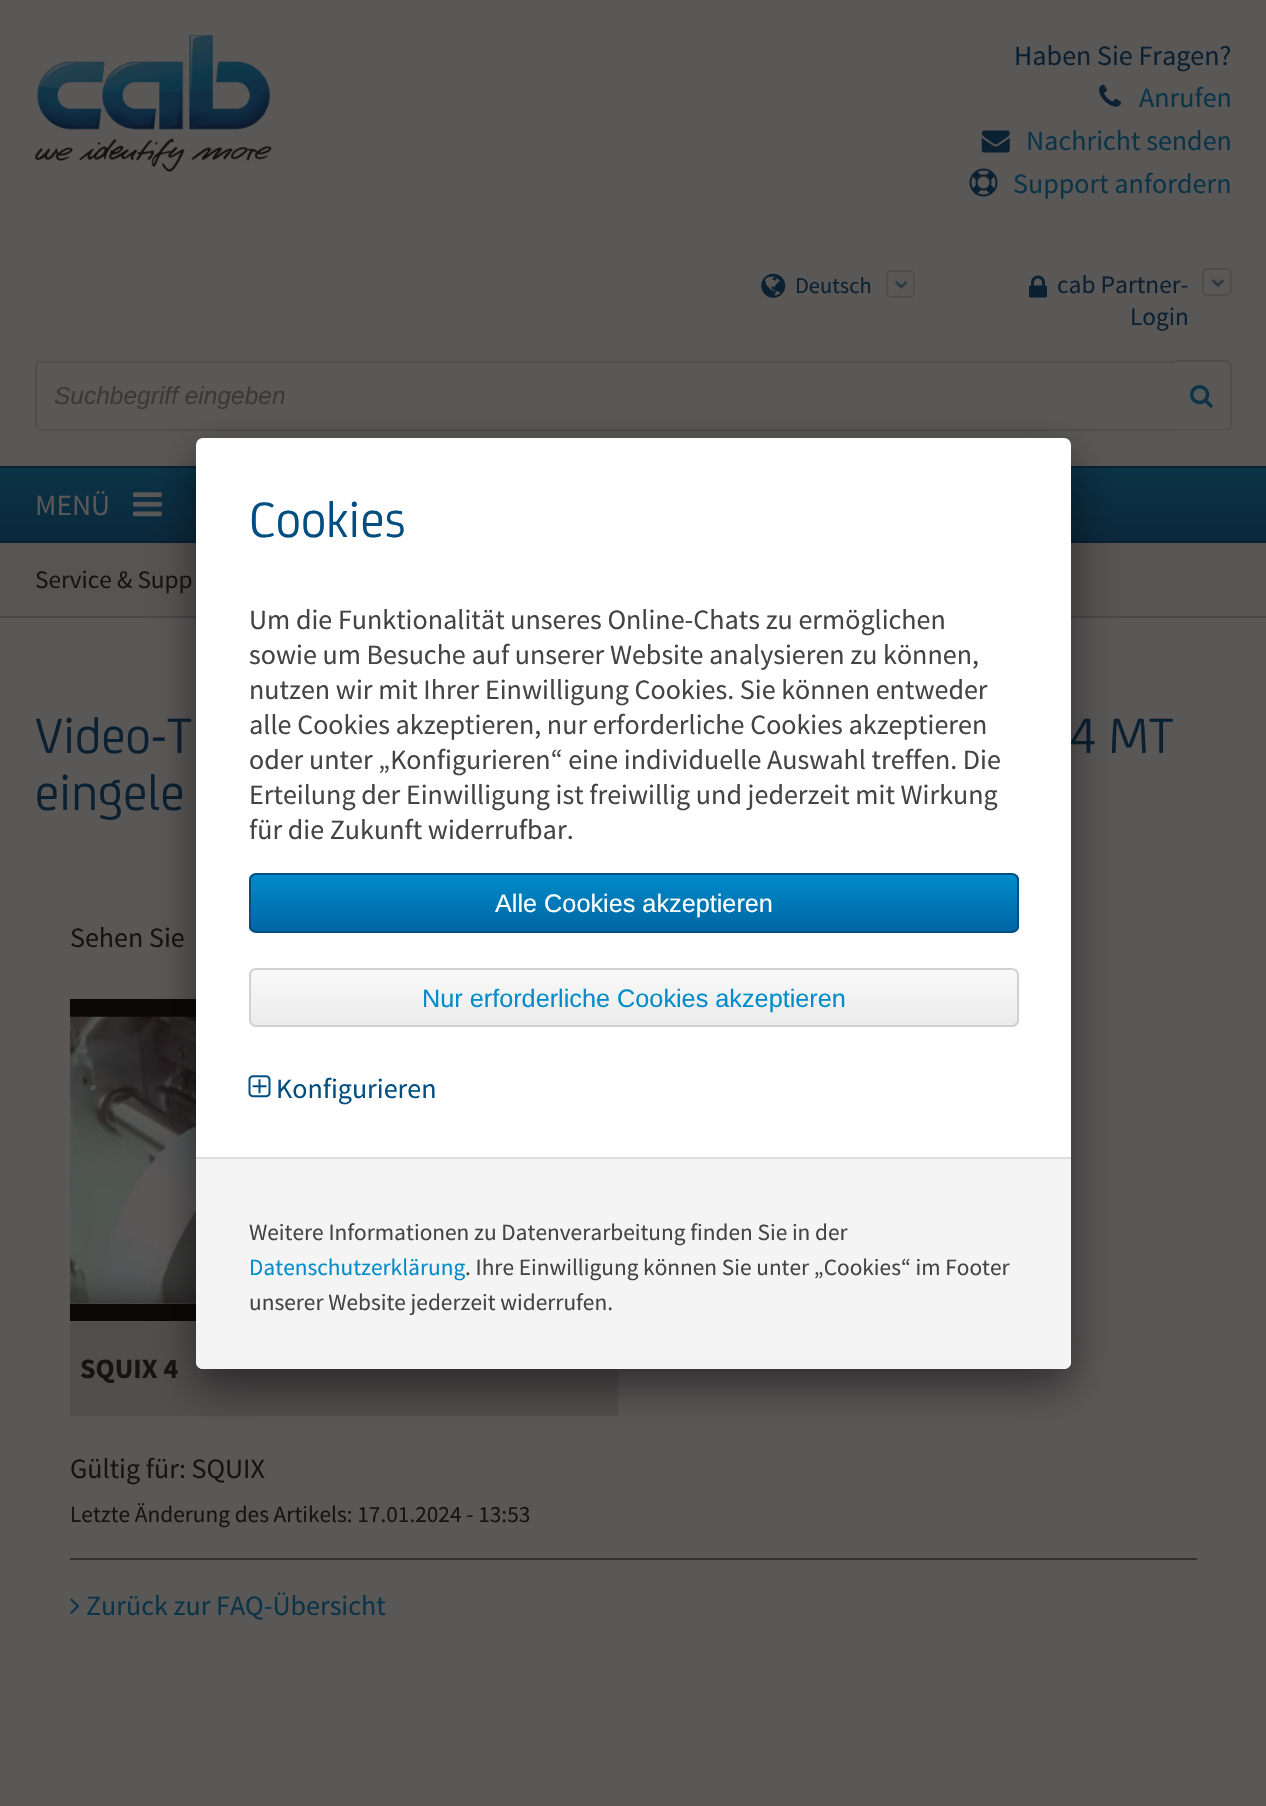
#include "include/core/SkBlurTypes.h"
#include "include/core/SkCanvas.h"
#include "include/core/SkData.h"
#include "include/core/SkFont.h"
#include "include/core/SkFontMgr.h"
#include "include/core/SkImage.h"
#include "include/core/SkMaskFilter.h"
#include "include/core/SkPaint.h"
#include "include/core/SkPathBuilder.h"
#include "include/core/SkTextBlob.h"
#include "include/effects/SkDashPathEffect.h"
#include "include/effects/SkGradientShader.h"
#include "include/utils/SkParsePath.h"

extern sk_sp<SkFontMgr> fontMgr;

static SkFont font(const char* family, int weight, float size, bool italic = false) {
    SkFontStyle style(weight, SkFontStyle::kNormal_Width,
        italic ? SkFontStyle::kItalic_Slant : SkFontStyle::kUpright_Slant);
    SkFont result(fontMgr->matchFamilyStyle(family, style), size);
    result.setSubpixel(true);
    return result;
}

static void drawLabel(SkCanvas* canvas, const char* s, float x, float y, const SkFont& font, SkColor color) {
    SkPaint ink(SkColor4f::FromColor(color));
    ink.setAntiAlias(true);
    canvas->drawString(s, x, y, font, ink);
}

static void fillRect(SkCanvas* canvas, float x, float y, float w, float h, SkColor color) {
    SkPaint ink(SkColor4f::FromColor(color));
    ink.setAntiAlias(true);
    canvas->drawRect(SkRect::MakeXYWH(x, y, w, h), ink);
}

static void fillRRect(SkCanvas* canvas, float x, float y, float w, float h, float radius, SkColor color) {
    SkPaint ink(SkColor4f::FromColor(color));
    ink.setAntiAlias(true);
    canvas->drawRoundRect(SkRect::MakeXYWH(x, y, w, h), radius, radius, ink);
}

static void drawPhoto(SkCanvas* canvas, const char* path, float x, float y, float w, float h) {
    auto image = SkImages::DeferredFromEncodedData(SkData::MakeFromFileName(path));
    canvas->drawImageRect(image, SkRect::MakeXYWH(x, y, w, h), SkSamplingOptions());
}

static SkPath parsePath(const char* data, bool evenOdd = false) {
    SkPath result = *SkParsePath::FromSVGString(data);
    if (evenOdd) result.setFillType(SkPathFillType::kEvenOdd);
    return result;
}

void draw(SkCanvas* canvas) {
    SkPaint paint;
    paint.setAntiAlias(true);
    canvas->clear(0xFF5A5757);
    drawPhoto(canvas, "assets/img1.png", 35, 35, 237, 137);
    SkFont font1 = font("Source Sans Pro", 400, 28);
    drawLabel(canvas, "Haben Sie Fragen?", 1014, 65, font1, 0xFF0B2031);
    drawPhoto(canvas, "assets/img2.png", 1099, 84, 22, 23);
    drawLabel(canvas, "Anrufen", 1139, 107, font1, 0xFF0B3447);
    drawPhoto(canvas, "assets/img3.png", 981, 130, 29, 23);
    drawLabel(canvas, "Nachricht senden", 1026, 150, font1, 0xFF0B3447);
    drawPhoto(canvas, "assets/img4.png", 969, 168, 29, 29);
    drawLabel(canvas, "Support anfordern", 1013, 193, font1, 0xFF0B3447);
    drawPhoto(canvas, "assets/img5.png", 761, 273, 25, 25);
    SkFont font2 = font("Source Sans Pro", 400, 22.5f);
    drawLabel(canvas, "Deutsch", 795, 293, font2, 0xFF0B2031);
    drawPhoto(canvas, "assets/img6.png", 894, 280, 14, 9);
    paint.setStroke(true);
    paint.setStrokeWidth(2);
    paint.setColor(0xFF504D4D);
    canvas->drawRoundRect(SkRect::MakeXYWH(887, 271, 27, 26), 4, 4, paint);
    drawPhoto(canvas, "assets/img7.png", 1029, 275, 18, 23);
    SkFont font3 = font("Source Sans Pro", 400, 25.25f);
    drawLabel(canvas, "cab Partner-", 1057, 293, font3, 0xFF0B2031);
    drawPhoto(canvas, "assets/img8.png", 1211, 278, 14, 9);
    canvas->drawRoundRect(SkRect::MakeXYWH(1203, 269, 28, 26), 4, 4, paint);
    drawLabel(canvas, "Login", 1130, 325, font3, 0xFF0B2031);
    canvas->drawRoundRect(SkRect::MakeXYWH(36, 362, 1195, 68), 4, 4, paint);
    SkFont font4 = font("Liberation Sans", 400, 24.5f, true);
    drawLabel(canvas, "Suchbegriff eingeben", 54, 404, font4, 0xFF3A3838);
    fillRRect(canvas, 1173, 361, 59, 70, 5, 0xFF5A5757);
    paint.setStroke(false);
    canvas->drawPath(parsePath("M1178 360H1227C1230 360 1232 363 1232 366V425C1232 428 1230 430 1227 430H1178C1175 430 1172 428 1172 425V366C1172 363 1175 360 1178 360ZM1178 362H1227C1229 362 1230 364 1230 366V425C1230 427 1229 429 1227 429H1178C1175 429 1172 427 1172 425V366C1172 364 1175 362 1178 362Z", true), paint);
    drawPhoto(canvas, "assets/img9.png", 1190, 385, 23, 23);
    {
        const SkColor colors[] = {0xFF0B3347, 0xFF0B283B};
        const float stops[] = {0, 1};
        const SkPoint ends[] = {{634, 467}, {634, 541}};
        paint.setShader(SkGradientShader::MakeLinear(ends, colors, stops, 2, SkTileMode::kClamp));
        paint.setAlpha(255);
    }
    canvas->drawRect(SkRect::MakeXYWH(0, 468, 1266, 73), paint);
    fillRect(canvas, 0, 466, 1266, 2, 0xFF0B2031);
    fillRect(canvas, 0, 541, 1266, 2, 0xFF0B2031);
    SkFont font5 = font("Source Sans Pro", 400, 29.5f);
    drawLabel(canvas, "MENÜ", 35, 515, font5, 0xFF5A5757);
    drawPhoto(canvas, "assets/img10.png", 133, 492, 29, 25);
    fillRect(canvas, 0, 543, 1266, 73, 0xFF575454);
    fillRect(canvas, 0, 616, 1266, 2, 0xFF4A4848);
    drawLabel(canvas, "Service & Supp", 35, 588, font3, 0xFF161313);
    SkFont font6 = font("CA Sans", 400, 53);
    drawLabel(canvas, "Video-T", 35, 753, font6, 0xFF0B2031);
    drawLabel(canvas, "4 MT", 1069, 753, font6, 0xFF0B2031);
    drawLabel(canvas, "eingele", 35, 810, font6, 0xFF0B2031);
    drawLabel(canvas, "Sehen Sie", 70, 947, font1, 0xFF161313);
    fillRect(canvas, 70, 999, 126, 18, 0xFF0B0808);
    fillRect(canvas, 70, 1304, 126, 17, 0xFF0B0808);
    drawPhoto(canvas, "assets/img11.png", 70, 1016, 126, 288);
    fillRect(canvas, 70, 1321, 548, 95, 0xFF514E4E);
    SkFont font7 = font("Source Sans Pro", 700, 28);
    drawLabel(canvas, "SQUIX 4", 80, 1378, font7, 0xFF161313);
    drawLabel(canvas, "Gültig für: SQUIX", 70, 1478, font1, 0xFF161313);
    SkFont font8 = font("Source Sans Pro", 400, 23.3f);
    drawLabel(canvas, "Letzte Änderung des Artikels: 17.01.2024 - 13:53", 70, 1522, font8, 0xFF161313);
    fillRect(canvas, 70, 1558, 1127, 2, 0xFF333030);
    drawPhoto(canvas, "assets/img12.png", 70, 1598, 10, 16);
    drawLabel(canvas, "Zurück zur FAQ-Übersicht", 86, 1615, font1, 0xFF0B3447);
    paint.setShader(nullptr);
    paint.setColor(0x80000000);
    paint.setMaskFilter(SkMaskFilter::MakeBlur(kNormal_SkBlurStyle, 22));
    canvas->drawRoundRect(SkRect::MakeXYWH(196, 455, 875, 931), 7, 7, paint);
    paint.setMaskFilter(nullptr);
    fillRRect(canvas, 196, 438, 875, 931, 7, 0xFFFFFFFF);
    drawLabel(canvas, "Cookies", 249, 537, font6, 0xFF004E82);
    drawLabel(canvas, "Um die Funktionalität unseres Online-Chats zu ermöglichen", 249, 629, font1, 0xFF444444);
    drawLabel(canvas, "sowie um Besuche auf unserer Website analysieren zu können,", 249, 664, font1, 0xFF444444);
    drawLabel(canvas, "nutzen wir mit Ihrer Einwilligung Cookies. Sie können entweder", 249, 699, font1, 0xFF444444);
    drawLabel(canvas, "alle Cookies akzeptieren, nur erforderliche Cookies akzeptieren", 249, 734, font1, 0xFF444444);
    drawLabel(canvas, "oder unter „Konfigurieren“ eine individuelle Auswahl treffen. Die", 249, 769, font1, 0xFF444444);
    drawLabel(canvas, "Erteilung der Einwilligung ist freiwillig und jederzeit mit Wirkung", 249, 804, font1, 0xFF444444);
    drawLabel(canvas, "für die Zukunft widerrufbar.", 249, 839, font1, 0xFF444444);
    canvas->save();
    canvas->clipPath(parsePath("M256 873H1012C1016 873 1019 876 1019 880V926C1019 930 1016 933 1012 933H256C252 933 249 930 249 926V880C249 876 252 873 256 873Z"), true);
    {
        const SkColor colors[] = {0xFF008BCA, 0xFF0066A4};
        const float stops[] = {0, 1};
        const SkPoint ends[] = {{634, 875}, {634, 931}};
        paint.setShader(SkGradientShader::MakeLinear(ends, colors, stops, 2, SkTileMode::kClamp));
        paint.setAlpha(255);
    }
    canvas->drawRect(SkRect::MakeXYWH(249, 875, 770, 56), paint);
    canvas->restore();
    paint.setStroke(true);
    paint.setShader(nullptr);
    paint.setColor(0xFF004E82);
    canvas->drawRoundRect(SkRect::MakeXYWH(250, 874, 768, 58), 6, 6, paint);
    SkFont font9 = font("Liberation Sans", 400, 25.25f);
    drawLabel(canvas, "Alle Cookies akzeptieren", 495, 912, font9, 0xFFFFFFFF);
    canvas->save();
    canvas->clipPath(parsePath("M256 968H1012C1016 968 1019 971 1019 975V1020C1019 1024 1016 1027 1012 1027H256C252 1027 249 1024 249 1020V975C249 971 252 968 256 968Z"), true);
    paint.setStroke(false);
    {
        const SkColor colors[] = {0xFFF9F9F9, 0xFFEBEBEB};
        const float stops[] = {0, 1};
        const SkPoint ends[] = {{634, 970}, {634, 1026}};
        paint.setShader(SkGradientShader::MakeLinear(ends, colors, stops, 2, SkTileMode::kClamp));
        paint.setAlpha(255);
    }
    canvas->drawRect(SkRect::MakeXYWH(249, 970, 770, 56), paint);
    canvas->restore();
    paint.setStroke(true);
    paint.setShader(nullptr);
    paint.setColor(0xFFD1D1D1);
    canvas->drawRoundRect(SkRect::MakeXYWH(250, 969, 768, 57), 6, 6, paint);
    drawLabel(canvas, "Nur erforderliche Cookies akzeptieren", 422, 1007, font9, 0xFF008CCB);
    drawPhoto(canvas, "assets/img13.png", 248, 1075, 23, 23);
    drawLabel(canvas, "Konfigurieren", 276, 1098, font1, 0xFF004E82);
    paint.setStroke(false);
    paint.setColor(0xFFF4F4F4);
    canvas->drawPath(parsePath("M196 1157H1071V1362C1071 1366 1068 1369 1064 1369H203C199 1369 196 1366 196 1362Z"), paint);
    fillRect(canvas, 196, 1157, 875, 2, 0xFFDCDCDC);
    drawLabel(canvas, "Weitere Informationen zu Datenverarbeitung finden Sie in der", 249, 1240, font8, 0xFF444444);
    drawLabel(canvas, "Datenschutzerklärung", 249, 1275, font8, 0xFF008CCB);
    drawLabel(canvas, ". Ihre Einwilligung können Sie unter „Cookies“ im Footer", 465, 1275, font8, 0xFF444444);
    drawLabel(canvas, "unserer Website jederzeit widerrufen.", 249, 1310, font8, 0xFF444444);
}
